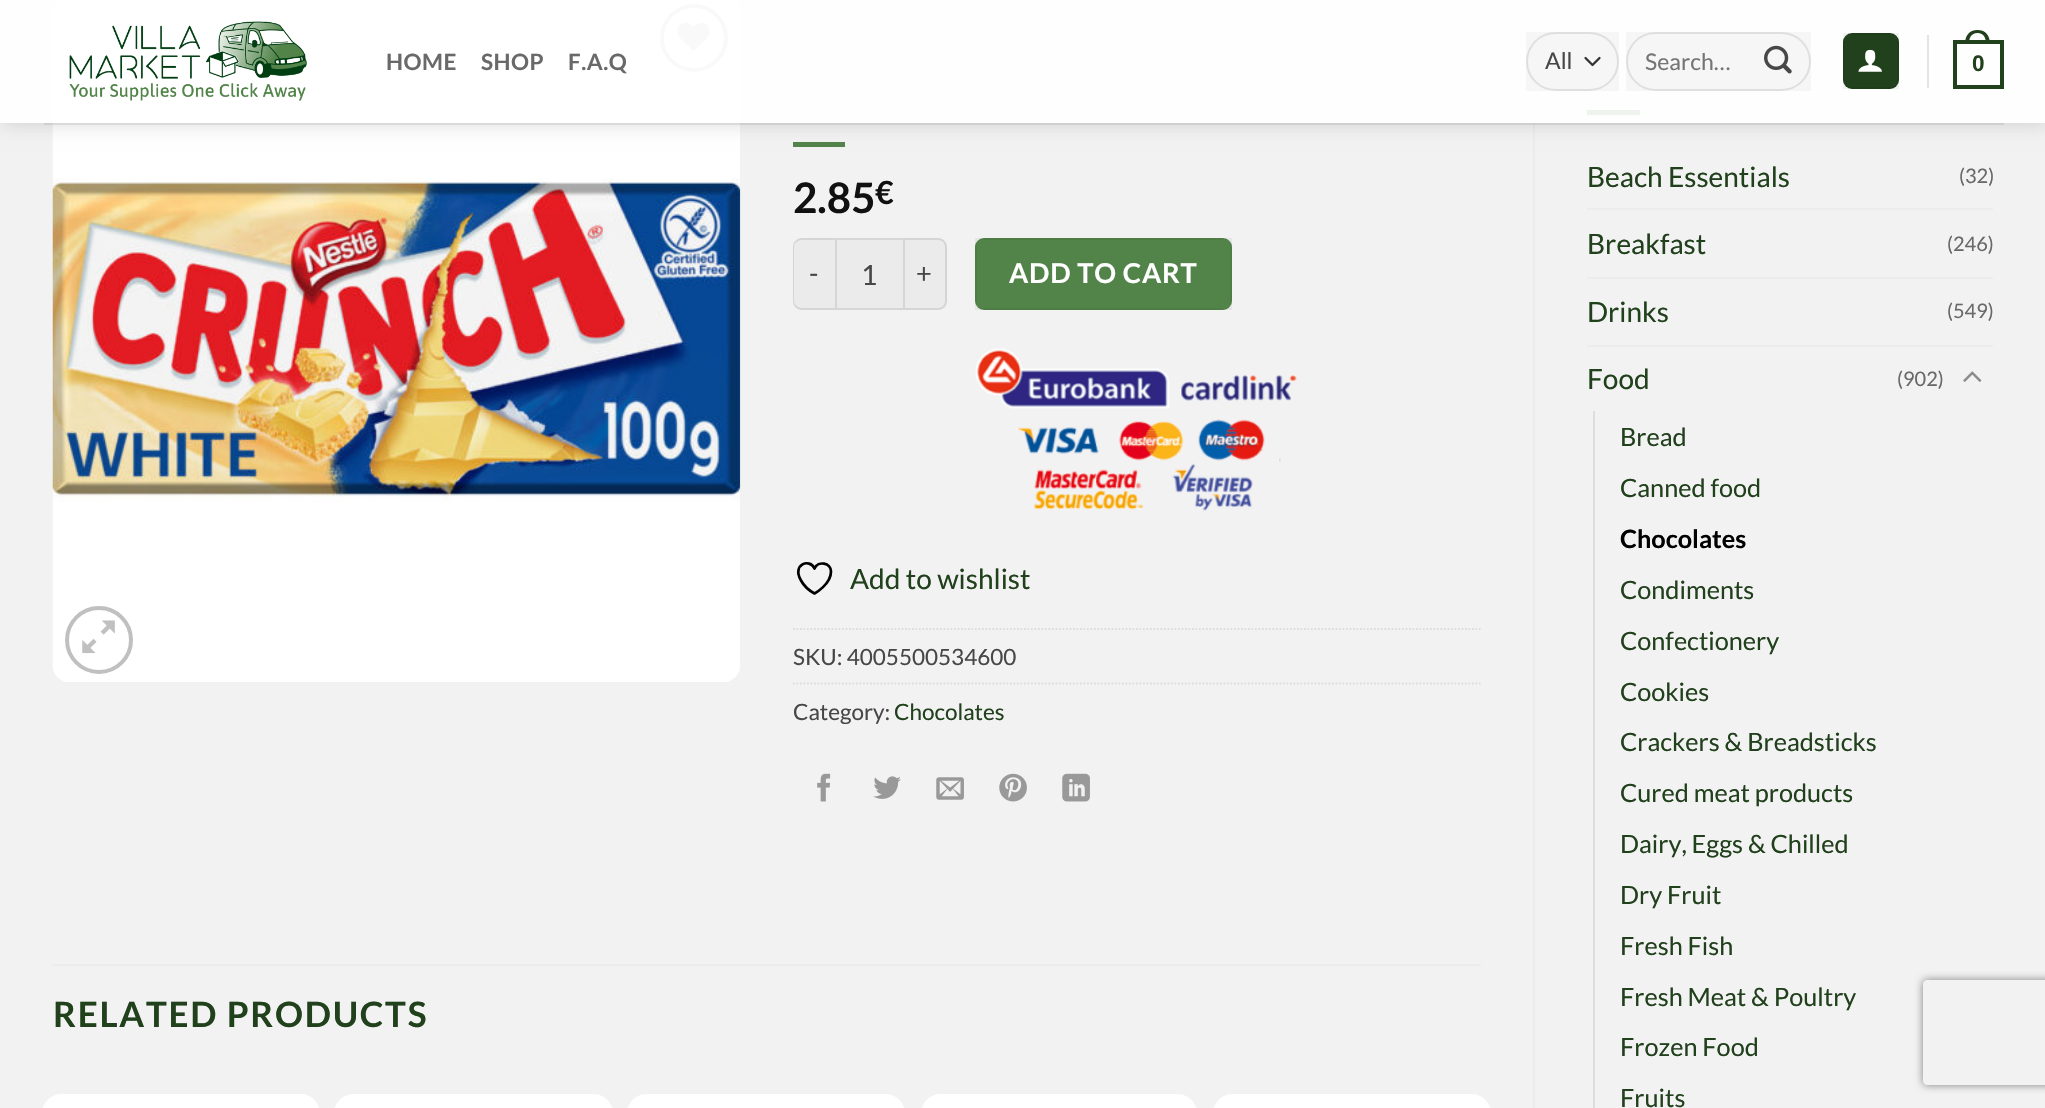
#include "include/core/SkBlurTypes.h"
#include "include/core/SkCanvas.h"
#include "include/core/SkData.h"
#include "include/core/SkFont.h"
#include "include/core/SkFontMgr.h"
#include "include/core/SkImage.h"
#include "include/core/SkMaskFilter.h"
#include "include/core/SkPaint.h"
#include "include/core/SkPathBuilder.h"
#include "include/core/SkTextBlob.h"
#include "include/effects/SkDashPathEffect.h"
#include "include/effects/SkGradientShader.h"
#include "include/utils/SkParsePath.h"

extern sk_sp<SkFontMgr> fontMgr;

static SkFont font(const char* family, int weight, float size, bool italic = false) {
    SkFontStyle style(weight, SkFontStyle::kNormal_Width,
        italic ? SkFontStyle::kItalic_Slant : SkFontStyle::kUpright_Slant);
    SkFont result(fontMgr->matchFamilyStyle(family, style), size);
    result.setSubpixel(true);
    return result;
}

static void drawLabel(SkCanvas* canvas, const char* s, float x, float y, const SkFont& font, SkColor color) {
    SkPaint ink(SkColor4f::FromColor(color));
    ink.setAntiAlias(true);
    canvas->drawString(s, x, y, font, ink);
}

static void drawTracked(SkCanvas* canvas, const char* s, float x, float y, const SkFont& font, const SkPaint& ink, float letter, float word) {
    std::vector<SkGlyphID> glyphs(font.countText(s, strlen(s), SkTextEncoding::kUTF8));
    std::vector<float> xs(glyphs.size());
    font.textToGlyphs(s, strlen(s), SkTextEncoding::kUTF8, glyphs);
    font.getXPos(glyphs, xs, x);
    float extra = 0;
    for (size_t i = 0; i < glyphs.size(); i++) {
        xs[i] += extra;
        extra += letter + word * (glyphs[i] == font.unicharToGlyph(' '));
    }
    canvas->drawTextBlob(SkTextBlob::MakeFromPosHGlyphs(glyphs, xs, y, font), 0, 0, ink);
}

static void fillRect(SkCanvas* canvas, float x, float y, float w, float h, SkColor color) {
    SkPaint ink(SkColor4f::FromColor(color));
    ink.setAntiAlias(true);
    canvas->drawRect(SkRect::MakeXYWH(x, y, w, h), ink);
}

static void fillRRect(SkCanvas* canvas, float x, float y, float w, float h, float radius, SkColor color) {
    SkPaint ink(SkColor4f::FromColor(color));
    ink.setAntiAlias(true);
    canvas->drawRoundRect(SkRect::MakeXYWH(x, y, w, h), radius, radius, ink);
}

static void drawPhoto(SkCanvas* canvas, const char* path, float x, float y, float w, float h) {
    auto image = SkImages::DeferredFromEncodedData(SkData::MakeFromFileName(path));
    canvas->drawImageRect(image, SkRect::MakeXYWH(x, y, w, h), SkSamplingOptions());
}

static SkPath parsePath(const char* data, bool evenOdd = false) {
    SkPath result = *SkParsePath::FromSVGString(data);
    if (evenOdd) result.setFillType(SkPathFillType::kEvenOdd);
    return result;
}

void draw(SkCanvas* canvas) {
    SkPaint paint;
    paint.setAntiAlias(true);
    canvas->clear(0xFFF2F2F2);
    fillRect(canvas, 1533, 0, 2, 1108, 0xFFECECEC);
    drawPhoto(canvas, "assets/img4.png", 52, 0, 689, 682);
    paint.setStroke(true);
    paint.setStrokeWidth(4);
    paint.setColor(0xFFC0C0C0);
    canvas->drawCircle(694, 38, 32, paint);
    drawPhoto(canvas, "assets/img5.png", 677, 22, 33, 29);
    fillRect(canvas, 793, 142, 52, 5, 0xFF52844A);
    fillRect(canvas, 1587, 110, 53, 5, 0xFF52844A);
    canvas->save();
    canvas->clipPath(parsePath("M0 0H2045V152H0ZM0 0H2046V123H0Z", true), true);
    paint.setStroke(false);
    paint.setColor(0x26000000);
    paint.setMaskFilter(SkMaskFilter::MakeBlur(kNormal_SkBlurStyle, 9));
    canvas->drawRect(SkRect::MakeXYWH(2, 2, 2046, 122), paint);
    paint.setMaskFilter(nullptr);
    canvas->restore();
    fillRect(canvas, 0, 0, 2045, 123, 0xE6FFFFFF);
    drawPhoto(canvas, "assets/img1.png", 69, 21, 238, 80);
    SkFont font1 = font("Lato", 700, 22.5f);
    paint.setColor(0xFF696969);
    drawTracked(canvas, "HOME", 386, 70, font1, paint, 0.5f, 0);
    drawTracked(canvas, "SHOP", 481, 70, font1, paint, 0.5f, 0);
    drawTracked(canvas, "F.A.Q", 568, 70, font1, paint, 0.5f, 0);
    fillRect(canvas, 1526, 32, 93, 59, 0x08000000);
    paint.setStroke(true);
    paint.setStrokeWidth(2.3f);
    paint.setStrokeCap(SkPaint::kRound_Cap);
    paint.setStrokeJoin(SkPaint::kRound_Join);
    paint.setColor(0xFF333333);
    canvas->drawPath(parsePath("M1585.5 58L1592.5 65L1599.5 58"), paint);
    paint.setStrokeWidth(2);
    paint.setStrokeCap(SkPaint::kButt_Cap);
    paint.setStrokeJoin(SkPaint::kMiter_Join);
    paint.setColor(0x17000000);
    canvas->drawRoundRect(SkRect::MakeXYWH(1527, 33, 91, 57), 28.5f, 28.5f, paint);
    SkFont font2 = font("Lato", 400, 23);
    drawLabel(canvas, "All", 1545, 69, font2, 0xFF474747);
    fillRect(canvas, 1626, 32, 185, 59, 0x08000000);
    canvas->drawRoundRect(SkRect::MakeXYWH(1627, 33, 183, 57), 28.5f, 28.5f, paint);
    drawLabel(canvas, "Search…", 1645, 70, font2, 0xFF757575);
    drawPhoto(canvas, "assets/img2.png", 1764, 45, 28, 29);
    fillRRect(canvas, 1843, 33, 56, 56, 9, 0xFF21401C);
    paint.setColor(0x0D000000);
    canvas->drawRect(SkRect::MakeXYWH(1844, 34, 54, 54), paint);
    drawPhoto(canvas, "assets/img3.png", 1858, 49, 24, 23);
    fillRect(canvas, 1927, 35, 2, 53, 0xFFE4E4E4);
    paint.setStrokeWidth(4);
    paint.setColor(0xFF21401C);
    canvas->drawRect(SkRect::MakeXYWH(1955, 42, 47, 45), paint);
    paint.setStroke(false);
    canvas->drawPath(parsePath("M1977.5 30C1986 30 1990 36 1990 44H1965C1965 36 1969 30 1977.5 30ZM1977.5 33C1984 33 1986 38 1986 44H1969C1969 38 1971 33 1977.5 33Z", true), paint);
    SkFont font3 = font("Liberation Sans", 700, 22.5f);
    drawTracked(canvas, "0", 1972, 71, font3, paint, 0.5f, 0);
    fillRect(canvas, 44, 123, 1960, 2, 0x1A474747);
    paint.setStroke(true);
    paint.setColor(0xFFC0C0C0);
    canvas->drawCircle(99, 640, 32, paint);
    drawPhoto(canvas, "assets/img6.png", 82, 620, 33, 34);
    SkFont font4 = font("Lato", 700, 42);
    drawLabel(canvas, "2.85", 793, 213, font4, 0xFF111111);
    SkFont font5 = font("Lato", 700, 32);
    drawLabel(canvas, "€", 875, 204, font5, 0xFF111111);
    paint.setStroke(false);
    paint.setColor(0xFFEBEBEB);
    canvas->drawPath(parsePath("M802 238H835V310H802C797 310 793 306 793 301V247C793 242 797 238 802 238Z"), paint);
    paint.setColor(0x17000000);
    canvas->drawPath(parsePath("M802 238H835V310H802C797 310 793 306 793 301V247C793 242 797 238 802 238ZM802 240H835V308H802C798 308 794 305 794 301V247C794 243 798 240 802 240Z", true), paint);
    SkFont font6 = font("Lato", 400, 27.25f);
    paint.setColor(0xFF474747);
    drawTracked(canvas, "-", 809, 283, font6, paint, 0.75f, 0);
    paint.setColor(0xFFEBEBEB);
    canvas->drawRect(SkRect::MakeXYWH(836, 239, 68, 70), paint);
    paint.setStroke(true);
    paint.setStrokeWidth(2);
    paint.setColor(0xFFD6D6D6);
    canvas->drawRect(SkRect::MakeXYWH(836, 239, 68, 70), paint);
    SkFont font7 = font("Lato", 400, 28);
    drawLabel(canvas, "1", 861, 285, font7, 0xFF474747);
    paint.setStroke(false);
    paint.setColor(0xFFEBEBEB);
    canvas->drawPath(parsePath("M905 238H938C943 238 947 242 947 247V301C947 306 943 310 938 310H905Z"), paint);
    paint.setColor(0x17000000);
    canvas->drawPath(parsePath("M905 238H938C943 238 947 242 947 247V301C947 306 943 310 938 310H905ZM905 240H938C942 240 945 243 945 247V301C945 305 942 308 938 308H905Z", true), paint);
    paint.setColor(0xFF474747);
    drawTracked(canvas, "+", 916, 283, font6, paint, 0.75f, 0);
    fillRRect(canvas, 975, 238, 257, 72, 9, 0xFF52844A);
    paint.setStroke(true);
    paint.setColor(0x0D000000);
    canvas->drawRect(SkRect::MakeXYWH(976, 239, 255, 70), paint);
    SkFont font8 = font("Lato", 700, 27.25f);
    paint.setStroke(false);
    paint.setColor(0xFFFFFFFF);
    drawTracked(canvas, "ADD TO CART", 1009, 283, font8, paint, 0.75f, 0);
    drawPhoto(canvas, "assets/img7.png", 975, 348, 322, 163);
    drawLabel(canvas, "Add to wishlist", 850, 589, font7, 0xFF21401C);
    paint.setStroke(true);
    paint.setStrokeWidth(2.7f);
    paint.setStrokeCap(SkPaint::kRound_Cap);
    paint.setStrokeJoin(SkPaint::kRound_Join);
    paint.setColor(0xFF000000);
    canvas->drawPath(parsePath("M831 571.5C831 562.5 818 560.5 814.5 568.5C810 558 791.5 564 801 580.5C804 586 809 590.5 814.5 593.5C814.5 593.5 831 584.5 831 571.5Z"), paint);
    paint.setStrokeWidth(1.8f);
    paint.setStrokeCap(SkPaint::kButt_Cap);
    paint.setStrokeJoin(SkPaint::kMiter_Join);
    paint.setColor(0xFFDDDDDD);
    paint.setPathEffect(SkDashPathEffect::Make({{1.75f, 1.75f}}, 0));
    canvas->drawPath(parsePath("M793 629H1480.5"), paint);
    paint.setPathEffect(nullptr);
    SkFont font9 = font("Lato", 400, 22.5f);
    drawLabel(canvas, "SKU: 4005500534600", 793, 665, font9, 0xFF474747);
    paint.setPathEffect(SkDashPathEffect::Make({{1.75f, 1.75f}}, 0));
    canvas->drawPath(parsePath("M793 683.5H1480.5"), paint);
    paint.setPathEffect(nullptr);
    drawLabel(canvas, "Category:", 793, 720, font9, 0xFF474747);
    drawLabel(canvas, "Chocolates", 894, 720, font9, 0xFF21401C);
    drawPhoto(canvas, "assets/img8.png", 817, 773, 14, 29);
    drawPhoto(canvas, "assets/img9.png", 873, 776, 28, 23);
    drawPhoto(canvas, "assets/img10.png", 936, 777, 28, 23);
    drawPhoto(canvas, "assets/img11.png", 999, 773, 28, 29);
    drawPhoto(canvas, "assets/img12.png", 1062, 773, 28, 29);
    fillRect(canvas, 53, 964, 1428, 2, 0xFFECECEC);
    SkFont font10 = font("Lato", 700, 35);
    paint.setStroke(false);
    paint.setColor(0xFF21401C);
    drawTracked(canvas, "RELATED PRODUCTS", 53, 1027, font10, paint, 1.75f, 0);
    fillRRect(canvas, 42, 1094, 278, 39, 25, 0xFFFFFFFF);
    fillRRect(canvas, 334, 1094, 279, 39, 25, 0xFFFFFFFF);
    fillRRect(canvas, 627, 1094, 278, 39, 25, 0xFFFFFFFF);
    fillRRect(canvas, 921, 1094, 276, 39, 25, 0xFFFFFFFF);
    fillRRect(canvas, 1213, 1094, 278, 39, 25, 0xFFFFFFFF);
    drawLabel(canvas, "Beach Essentials", 1587, 187, font7, 0xFF21401C);
    SkFont font11 = font("Lato", 400, 20);
    drawLabel(canvas, "(32)", 1959, 183, font11, 0xFF696969);
    fillRect(canvas, 1587, 208, 406, 2, 0xFFECECEC);
    drawLabel(canvas, "Breakfast", 1587, 254, font7, 0xFF21401C);
    drawLabel(canvas, "(246)", 1947, 251, font11, 0xFF696969);
    fillRect(canvas, 1587, 277, 406, 2, 0xFFECECEC);
    drawLabel(canvas, "Drinks", 1587, 322, font7, 0xFF21401C);
    drawLabel(canvas, "(549)", 1947, 318, font11, 0xFF696969);
    fillRect(canvas, 1587, 345, 406, 2, 0xFFECECEC);
    drawLabel(canvas, "Food", 1587, 389, font7, 0xFF21401C);
    drawLabel(canvas, "(902)", 1897, 386, font11, 0xFF696969);
    drawPhoto(canvas, "assets/img13.png", 1963, 371, 19, 11);
    fillRect(canvas, 1593, 411, 2, 697, 0xFFDDDDDD);
    SkFont font12 = font("Lato", 400, 25.25f);
    drawLabel(canvas, "Bread", 1620, 446, font12, 0xFF21401C);
    drawLabel(canvas, "Canned food", 1620, 497, font12, 0xFF21401C);
    SkFont font13 = font("Lato", 700, 25.25f);
    drawLabel(canvas, "Chocolates", 1620, 548, font13, 0xFF000000);
    drawLabel(canvas, "Condiments", 1620, 599, font12, 0xFF21401C);
    drawLabel(canvas, "Confectionery", 1620, 650, font12, 0xFF21401C);
    drawLabel(canvas, "Cookies", 1620, 701, font12, 0xFF21401C);
    drawLabel(canvas, "Crackers & Breadsticks", 1620, 751, font12, 0xFF21401C);
    drawLabel(canvas, "Cured meat products", 1620, 802, font12, 0xFF21401C);
    drawLabel(canvas, "Dairy, Eggs & Chilled", 1620, 853, font12, 0xFF21401C);
    drawLabel(canvas, "Dry Fruit", 1620, 904, font12, 0xFF21401C);
    drawLabel(canvas, "Fresh Fish", 1620, 955, font12, 0xFF21401C);
    drawLabel(canvas, "Fresh Meat & Poultry", 1620, 1006, font12, 0xFF21401C);
    drawLabel(canvas, "Frozen Food", 1620, 1056, font12, 0xFF21401C);
    drawLabel(canvas, "Fruits", 1620, 1107, font12, 0xFF21401C);
    canvas->save();
    canvas->clipPath(parsePath("M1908 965H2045V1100H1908ZM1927 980H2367C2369 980 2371 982 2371 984V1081C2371 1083 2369 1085 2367 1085H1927C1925 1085 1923 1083 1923 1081V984C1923 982 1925 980 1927 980Z", true), true);
    paint.setColor(0xFF808080);
    paint.setMaskFilter(SkMaskFilter::MakeBlur(kNormal_SkBlurStyle, 4.5f));
    canvas->drawRoundRect(SkRect::MakeXYWH(1923, 980, 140, 105), 4, 4, paint);
    paint.setMaskFilter(nullptr);
    canvas->restore();
}
